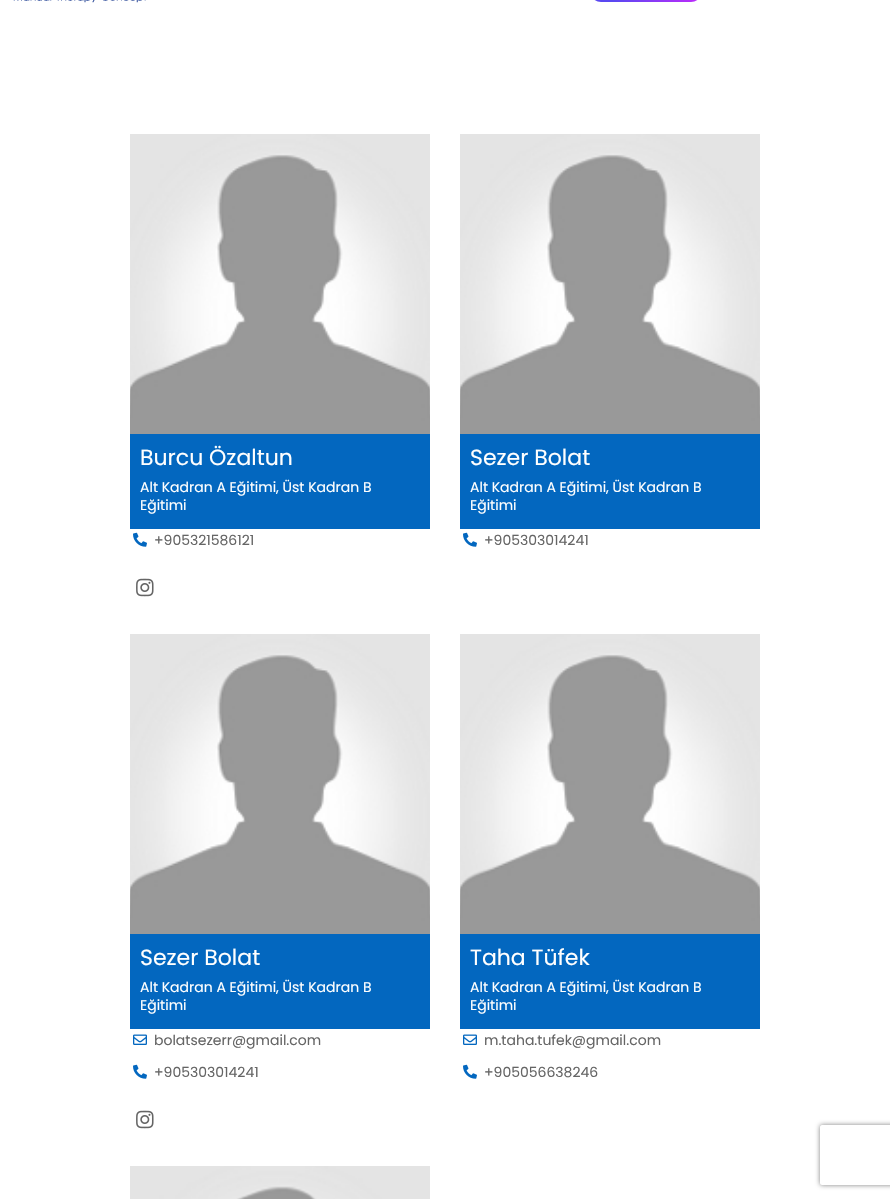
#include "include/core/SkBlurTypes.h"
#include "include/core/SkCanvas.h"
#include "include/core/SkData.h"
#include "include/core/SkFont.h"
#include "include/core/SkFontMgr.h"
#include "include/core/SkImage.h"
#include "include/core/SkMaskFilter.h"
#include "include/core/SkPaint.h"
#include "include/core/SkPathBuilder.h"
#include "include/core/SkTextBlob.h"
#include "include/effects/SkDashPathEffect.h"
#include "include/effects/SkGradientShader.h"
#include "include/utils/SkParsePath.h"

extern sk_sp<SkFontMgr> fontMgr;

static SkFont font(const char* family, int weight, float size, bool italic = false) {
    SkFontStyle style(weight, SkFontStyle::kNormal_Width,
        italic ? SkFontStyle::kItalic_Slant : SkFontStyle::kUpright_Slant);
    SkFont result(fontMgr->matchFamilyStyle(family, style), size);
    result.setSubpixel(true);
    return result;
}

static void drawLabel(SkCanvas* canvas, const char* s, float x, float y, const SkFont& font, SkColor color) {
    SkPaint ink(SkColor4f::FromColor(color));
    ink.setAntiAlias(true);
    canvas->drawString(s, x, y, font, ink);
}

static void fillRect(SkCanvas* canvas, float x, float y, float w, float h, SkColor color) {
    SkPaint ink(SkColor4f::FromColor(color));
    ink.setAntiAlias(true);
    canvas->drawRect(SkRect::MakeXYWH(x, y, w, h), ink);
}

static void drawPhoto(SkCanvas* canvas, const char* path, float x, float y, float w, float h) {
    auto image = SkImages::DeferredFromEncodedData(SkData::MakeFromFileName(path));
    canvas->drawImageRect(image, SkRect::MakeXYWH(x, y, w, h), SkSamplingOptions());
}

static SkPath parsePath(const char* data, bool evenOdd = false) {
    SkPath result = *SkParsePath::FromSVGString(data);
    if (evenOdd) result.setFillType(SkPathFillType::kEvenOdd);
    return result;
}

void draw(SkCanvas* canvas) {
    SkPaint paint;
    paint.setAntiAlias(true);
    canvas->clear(0xFFFFFFFF);
    drawPhoto(canvas, "assets/img1.png", 13, 0, 133, 3);
    {
        const SkColor colors[] = {0xFF5A48F1, 0xFFC02AFB};
        const float stops[] = {0.2f, 1};
        const SkPoint ends[] = {{590, -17}, {702, -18}};
        paint.setShader(SkGradientShader::MakeLinear(ends, colors, stops, 2, SkTileMode::kClamp));
        paint.setAlpha(255);
    }
    canvas->drawRoundRect(SkRect::MakeXYWH(590, -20, 112, 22), 19.5f, 19.5f, paint);
    drawPhoto(canvas, "assets/img2.png", 130, 134, 300, 300);
    fillRect(canvas, 130, 434, 300, 95, 0xFF0367BF);
    SkFont font1 = font("Poppins", 400, 22);
    drawLabel(canvas, "Burcu Özaltun", 140, 465, font1, 0xFFFFFFFF);
    SkFont font2 = font("Poppins", 400, 14);
    drawLabel(canvas, "Alt Kadran A Eğitimi, Üst Kadran B", 140, 492, font2, 0xFFFFFFFF);
    drawLabel(canvas, "Eğitimi", 140, 510, font2, 0xFFFFFFFF);
    drawPhoto(canvas, "assets/img3.png", 133, 532, 14, 15);
    drawLabel(canvas, "+905321586121", 154, 545, font2, 0xFF656565);
    drawPhoto(canvas, "assets/img4.png", 136, 578, 18, 19);
    drawPhoto(canvas, "assets/img2.png", 460, 134, 300, 300);
    fillRect(canvas, 460, 434, 300, 95, 0xFF0367BF);
    drawLabel(canvas, "Sezer Bolat", 470, 465, font1, 0xFFFFFFFF);
    drawLabel(canvas, "Alt Kadran A Eğitimi, Üst Kadran B", 470, 492, font2, 0xFFFFFFFF);
    drawLabel(canvas, "Eğitimi", 470, 510, font2, 0xFFFFFFFF);
    drawPhoto(canvas, "assets/img3.png", 463, 532, 14, 15);
    drawLabel(canvas, "+905303014241", 484, 545, font2, 0xFF656565);
    drawPhoto(canvas, "assets/img2.png", 130, 634, 300, 300);
    fillRect(canvas, 130, 934, 300, 95, 0xFF0367BF);
    drawLabel(canvas, "Sezer Bolat", 140, 965, font1, 0xFFFFFFFF);
    drawLabel(canvas, "Alt Kadran A Eğitimi, Üst Kadran B", 140, 992, font2, 0xFFFFFFFF);
    drawLabel(canvas, "Eğitimi", 140, 1010, font2, 0xFFFFFFFF);
    drawPhoto(canvas, "assets/img5.png", 133, 1034, 14, 11);
    drawLabel(canvas, "bolatsezerr@gmail.com", 154, 1045, font2, 0xFF656565);
    drawPhoto(canvas, "assets/img3.png", 133, 1064, 14, 15);
    drawLabel(canvas, "+905303014241", 154, 1077, font2, 0xFF656565);
    drawPhoto(canvas, "assets/img4.png", 136, 1110, 18, 19);
    drawPhoto(canvas, "assets/img2.png", 460, 634, 300, 300);
    fillRect(canvas, 460, 934, 300, 95, 0xFF0367BF);
    drawLabel(canvas, "Taha Tüfek", 470, 965, font1, 0xFFFFFFFF);
    drawLabel(canvas, "Alt Kadran A Eğitimi, Üst Kadran B", 470, 992, font2, 0xFFFFFFFF);
    drawLabel(canvas, "Eğitimi", 470, 1010, font2, 0xFFFFFFFF);
    drawPhoto(canvas, "assets/img5.png", 463, 1034, 14, 11);
    drawLabel(canvas, "m.taha.tufek@gmail.com", 484, 1045, font2, 0xFF656565);
    drawPhoto(canvas, "assets/img3.png", 463, 1064, 14, 15);
    drawLabel(canvas, "+905056638246", 484, 1077, font2, 0xFF656565);
    drawPhoto(canvas, "assets/img6.png", 130, 1166, 300, 33);
    canvas->save();
    canvas->clipPath(parsePath("M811 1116H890V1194H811ZM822 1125H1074C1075 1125 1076 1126 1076 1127V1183C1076 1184 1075 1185 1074 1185H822C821 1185 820 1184 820 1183V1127C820 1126 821 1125 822 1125Z", true), true);
    paint.setShader(nullptr);
    paint.setColor(0xFF808080);
    paint.setMaskFilter(SkMaskFilter::MakeBlur(kNormal_SkBlurStyle, 2.5f));
    canvas->drawRoundRect(SkRect::MakeXYWH(820, 1125, 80, 60), 2, 2, paint);
    paint.setMaskFilter(nullptr);
    canvas->restore();
}
